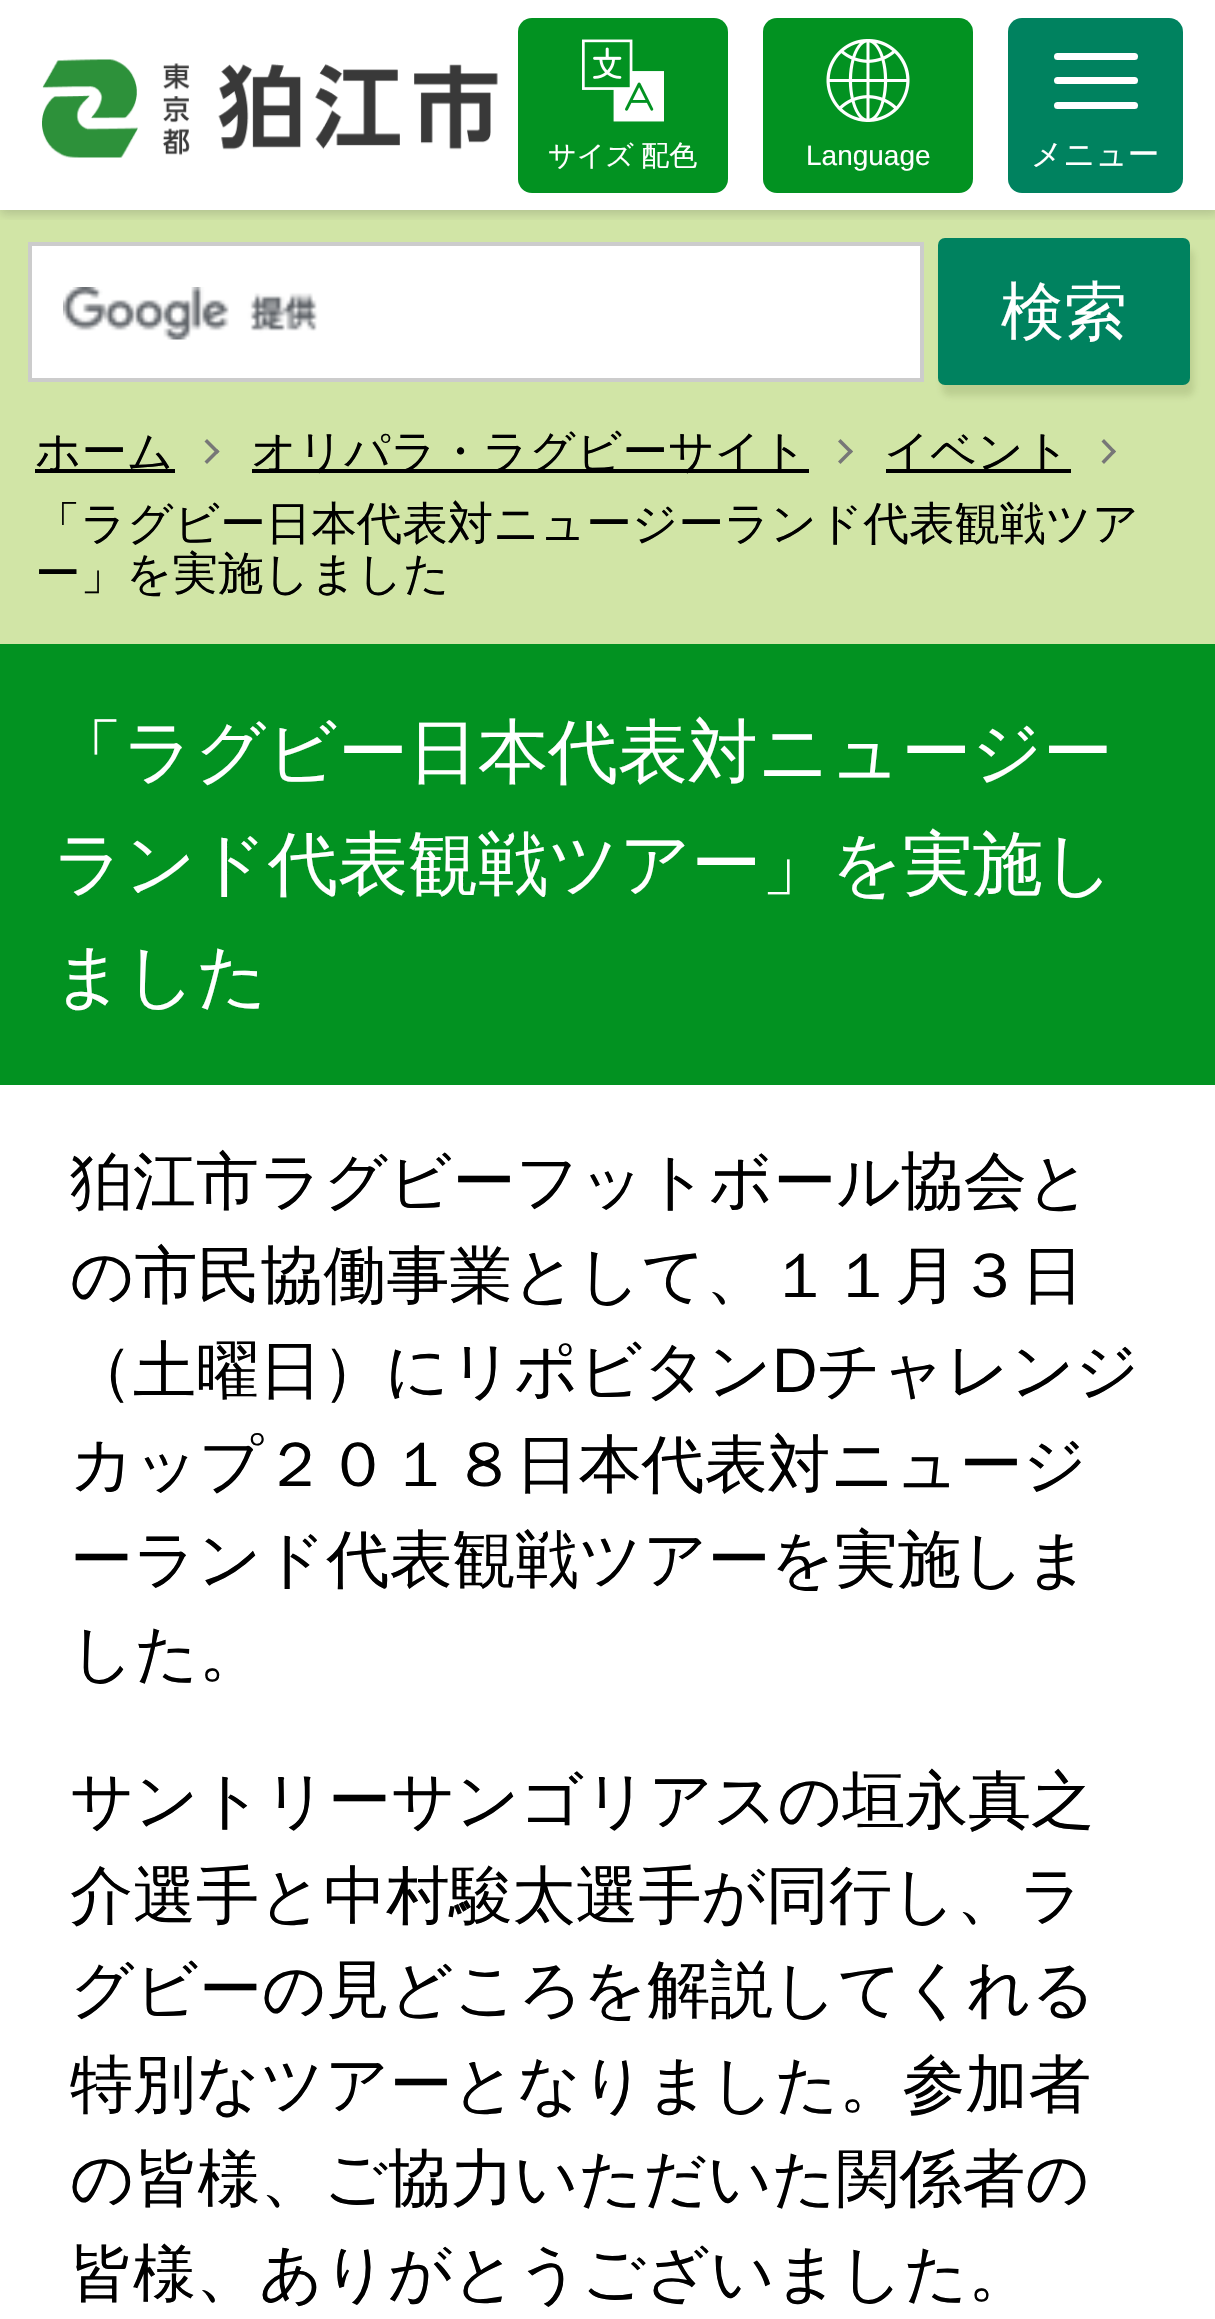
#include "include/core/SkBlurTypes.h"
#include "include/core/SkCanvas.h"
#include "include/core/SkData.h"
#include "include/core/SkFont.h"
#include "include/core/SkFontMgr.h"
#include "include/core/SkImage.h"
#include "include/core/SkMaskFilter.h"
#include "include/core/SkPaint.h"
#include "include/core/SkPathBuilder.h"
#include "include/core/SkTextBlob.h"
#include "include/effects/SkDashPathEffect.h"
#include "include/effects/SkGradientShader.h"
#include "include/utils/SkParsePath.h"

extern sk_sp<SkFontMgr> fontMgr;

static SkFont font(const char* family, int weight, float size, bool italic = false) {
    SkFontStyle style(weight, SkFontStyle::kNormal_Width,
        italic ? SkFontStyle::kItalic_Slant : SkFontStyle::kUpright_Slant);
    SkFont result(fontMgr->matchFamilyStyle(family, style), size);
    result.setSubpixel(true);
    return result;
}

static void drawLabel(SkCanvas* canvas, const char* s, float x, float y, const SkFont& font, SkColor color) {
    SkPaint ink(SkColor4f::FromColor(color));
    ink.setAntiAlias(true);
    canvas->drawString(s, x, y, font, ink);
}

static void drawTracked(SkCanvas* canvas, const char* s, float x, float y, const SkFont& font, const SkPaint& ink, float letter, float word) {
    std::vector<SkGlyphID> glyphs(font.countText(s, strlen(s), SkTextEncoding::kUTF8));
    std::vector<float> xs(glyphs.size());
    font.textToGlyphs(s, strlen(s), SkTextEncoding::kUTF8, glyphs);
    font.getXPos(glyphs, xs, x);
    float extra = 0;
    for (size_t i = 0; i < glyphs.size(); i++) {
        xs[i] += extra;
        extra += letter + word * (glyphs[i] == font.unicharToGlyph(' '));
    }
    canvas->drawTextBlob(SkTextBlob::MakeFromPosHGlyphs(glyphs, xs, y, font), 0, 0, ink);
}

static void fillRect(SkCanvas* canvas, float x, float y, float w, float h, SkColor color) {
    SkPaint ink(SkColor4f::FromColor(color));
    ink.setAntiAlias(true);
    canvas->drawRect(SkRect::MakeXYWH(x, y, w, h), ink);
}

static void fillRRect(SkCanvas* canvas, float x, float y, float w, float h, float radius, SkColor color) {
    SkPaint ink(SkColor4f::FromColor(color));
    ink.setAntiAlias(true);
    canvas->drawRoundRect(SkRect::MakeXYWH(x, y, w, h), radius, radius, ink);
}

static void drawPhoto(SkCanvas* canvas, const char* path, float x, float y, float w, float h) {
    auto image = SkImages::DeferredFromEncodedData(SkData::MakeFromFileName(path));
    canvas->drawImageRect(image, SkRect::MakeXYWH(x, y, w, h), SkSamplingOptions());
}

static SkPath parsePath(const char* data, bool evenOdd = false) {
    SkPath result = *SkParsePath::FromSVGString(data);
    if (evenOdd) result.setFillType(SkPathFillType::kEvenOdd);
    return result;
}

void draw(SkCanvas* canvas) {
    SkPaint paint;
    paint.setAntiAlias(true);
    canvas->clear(0xFFFFFFFF);
    fillRect(canvas, 0, 210, 1215, 434, 0xFFD1E5A6);
    canvas->save();
    canvas->clipRect(SkRect::MakeXYWH(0, 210, 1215, 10));
    paint.setColor(0x33333333);
    paint.setMaskFilter(SkMaskFilter::MakeBlur(kNormal_SkBlurStyle, 5));
    canvas->drawRect(SkRect::MakeXYWH(0, 4, 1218, 210), paint);
    paint.setMaskFilter(nullptr);
    canvas->restore();
    drawPhoto(canvas, "assets/img1.png", 42, 59, 456, 99);
    fillRRect(canvas, 518, 18, 210, 175, 14, 0xFF029221);
    drawPhoto(canvas, "assets/img2.png", 582, 39, 82, 83);
    SkFont font1 = font("WenQuanYi Zen Hei", 500, 28);
    paint.setColor(0xFFFFFFFF);
    drawTracked(canvas, "サイズ 配色", 548, 165, font1, paint, 0, -1);
    fillRRect(canvas, 763, 18, 210, 175, 14, 0xFF029221);
    drawPhoto(canvas, "assets/img3.png", 826, 39, 84, 83);
    SkFont font2 = font("Liberation Sans", 400, 28);
    drawLabel(canvas, "Language", 806, 165, font2, 0xFFFFFFFF);
    fillRRect(canvas, 1008, 18, 175, 175, 14, 0xFF00825F);
    fillRRect(canvas, 1054, 53, 84, 7, 3.5f, 0xFFFFFFFF);
    fillRRect(canvas, 1054, 77, 84, 7, 3.5f, 0xFFFFFFFF);
    fillRRect(canvas, 1054, 102, 84, 7, 3.5f, 0xFFFFFFFF);
    SkFont font3 = font("WenQuanYi Zen Hei", 500, 31.5f);
    drawLabel(canvas, "メニュー", 1031, 165, font3, 0xFFFFFFFF);
    canvas->drawRect(SkRect::MakeXYWH(30, 244, 892, 136), paint);
    paint.setStroke(true);
    paint.setStrokeWidth(4);
    paint.setColor(0xFFCCCCCC);
    canvas->drawRect(SkRect::MakeXYWH(30, 244, 892, 136), paint);
    drawPhoto(canvas, "assets/img4.png", 63, 287, 255, 53);
    paint.setStroke(false);
    paint.setColor(0x263A4D13);
    paint.setMaskFilter(SkMaskFilter::MakeBlur(kNormal_SkBlurStyle, 3.5f));
    canvas->drawRoundRect(SkRect::MakeXYWH(942, 249, 252, 147), 7, 7, paint);
    paint.setMaskFilter(nullptr);
    fillRRect(canvas, 938, 238, 252, 147, 7, 0xFF00825F);
    SkFont font4 = font("WenQuanYi Zen Hei", 500, 63);
    drawLabel(canvas, "検索", 1001, 333, font4, 0xFFFFFFFF);
    fillRect(canvas, 35, 469, 140, 4, 0xFF000000);
    SkFont font5 = font("WenQuanYi Zen Hei", 500, 45.5f);
    drawLabel(canvas, "ホーム", 35, 467, font5, 0xFF000000);
    paint.setColor(0xFF777777);
    canvas->drawPath(parsePath("M207 439L219.5 451.5L217 454L204.5 441.5Z"), paint);
    canvas->drawPath(parsePath("M217 449L219.5 451.5L207 464L204.5 461.5Z"), paint);
    fillRect(canvas, 252, 469, 557, 4, 0xFF000000);
    drawLabel(canvas, "オリパラ・ラグビーサイト", 251, 467, font5, 0xFF000000);
    canvas->drawPath(parsePath("M840.5 439L853 451.5L850.5 454L838 441.5Z"), paint);
    canvas->drawPath(parsePath("M850.5 449L853 451.5L840.5 464L838 461.5Z"), paint);
    fillRect(canvas, 886, 469, 185, 4, 0xFF000000);
    drawLabel(canvas, "イベント", 884, 467, font5, 0xFF000000);
    canvas->drawPath(parsePath("M1104 439L1116 451.5L1113.5 454L1101.5 441.5Z"), paint);
    canvas->drawPath(parsePath("M1113.5 449L1116 451.5L1104 464L1101.5 461.5Z"), paint);
    drawLabel(canvas, "「ラグビー日本代表対ニュージーランド代表観戦ツア", 35, 539, font5, 0xFF000000);
    drawLabel(canvas, "ー」を実施しました", 35, 589, font5, 0xFF000000);
    fillRect(canvas, 0, 644, 1215, 441, 0xFF029221);
    SkFont font6 = font("WenQuanYi Zen Hei", 500, 70);
    drawLabel(canvas, "「ラグビー日本代表対ニュージー", 53, 776, font6, 0xFFFFFFFF);
    drawLabel(canvas, "ランド代表観戦ツアー」を実施し", 53, 888, font6, 0xFFFFFFFF);
    drawLabel(canvas, "ました", 53, 1000, font6, 0xFFFFFFFF);
    drawLabel(canvas, "狛江市ラグビーフットボール協会と", 70, 1203, font4, 0xFF000000);
    drawLabel(canvas, "の市民協働事業として、１１月３日", 70, 1297, font4, 0xFF000000);
    drawLabel(canvas, "（土曜日）にリポビタン", 70, 1392, font4, 0xFF000000);
    SkFont font7 = font("Liberation Sans", 400, 63);
    drawLabel(canvas, "D", 772, 1392, font7, 0xFF000000);
    drawLabel(canvas, "チャレンジ", 817, 1392, font4, 0xFF000000);
    drawLabel(canvas, "カップ２０１８日本代表対ニュージ", 70, 1486, font4, 0xFF000000);
    drawLabel(canvas, "ーランド代表観戦ツアーを実施しま", 70, 1581, font4, 0xFF000000);
    drawLabel(canvas, "した。", 70, 1675, font4, 0xFF000000);
    drawLabel(canvas, "サントリーサンゴリアスの垣永真之", 70, 1822, font4, 0xFF000000);
    drawLabel(canvas, "介選手と中村駿太選手が同行し、ラ", 70, 1917, font4, 0xFF000000);
    drawLabel(canvas, "グビーの見どころを解説してくれる", 70, 2011, font4, 0xFF000000);
    drawLabel(canvas, "特別なツアーとなりました。参加者", 70, 2106, font4, 0xFF000000);
    drawLabel(canvas, "の皆様、ご協力いただいた関係者の", 70, 2200, font4, 0xFF000000);
    drawLabel(canvas, "皆様、ありがとうございました。", 70, 2295, font4, 0xFF000000);
}
